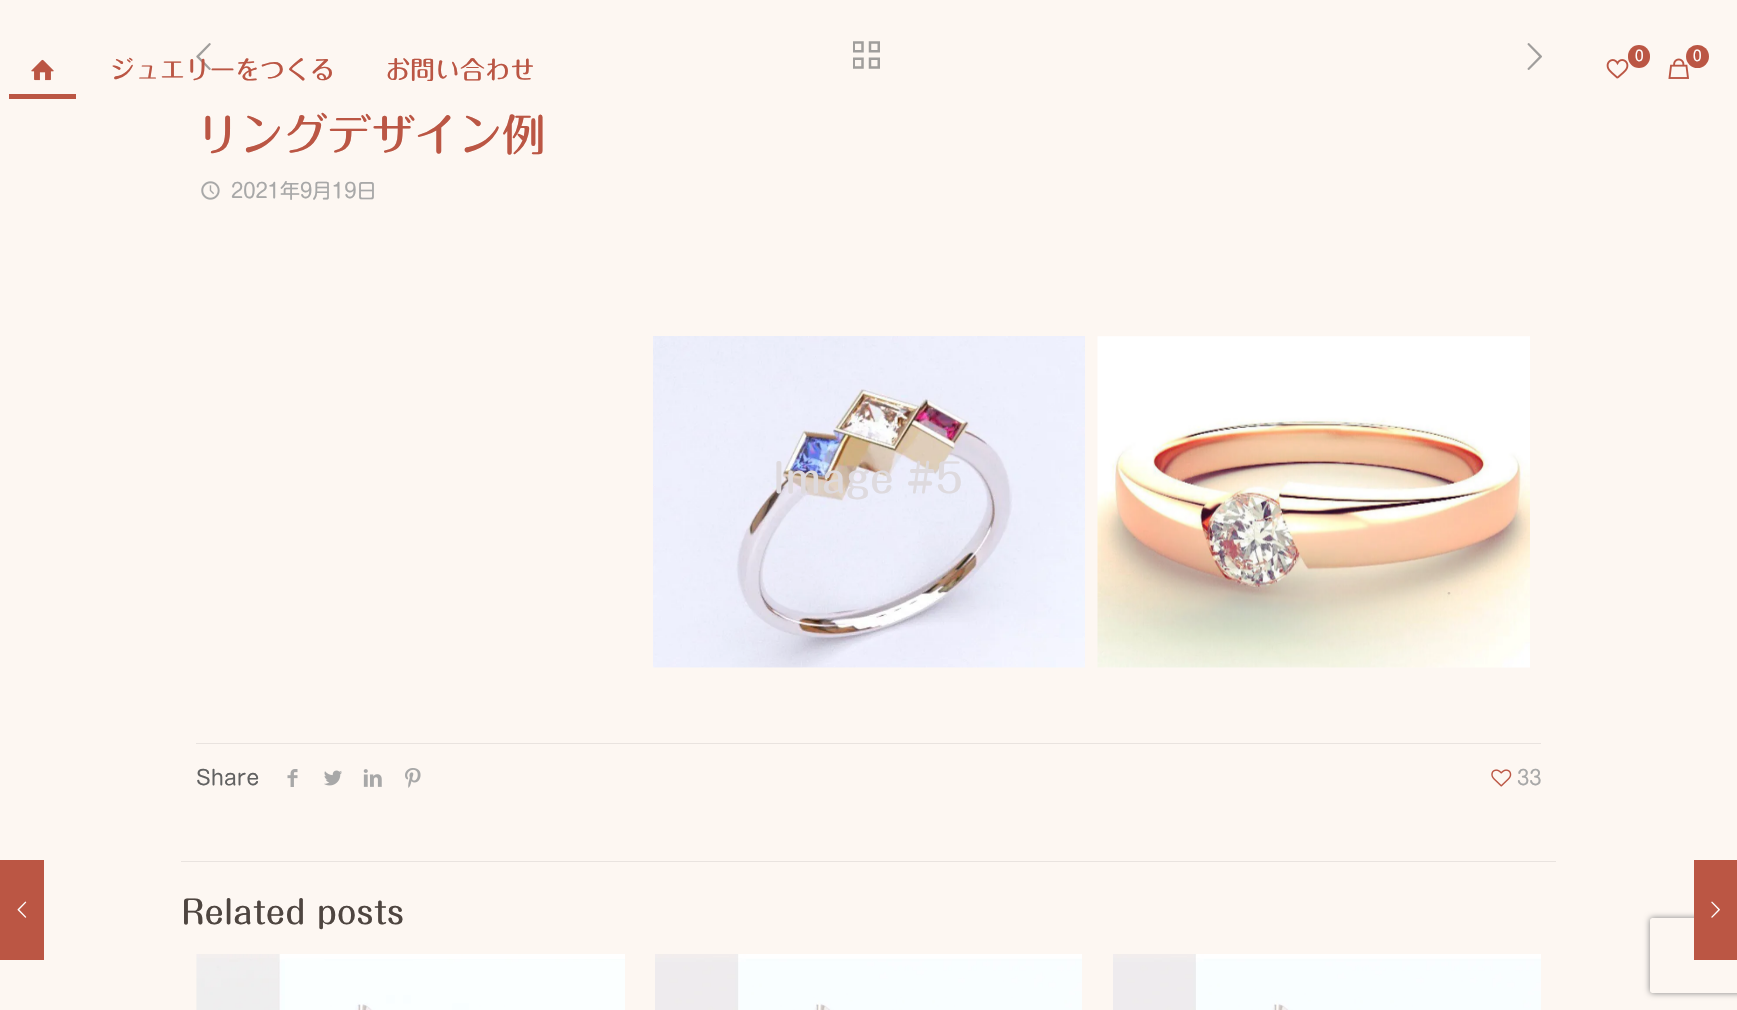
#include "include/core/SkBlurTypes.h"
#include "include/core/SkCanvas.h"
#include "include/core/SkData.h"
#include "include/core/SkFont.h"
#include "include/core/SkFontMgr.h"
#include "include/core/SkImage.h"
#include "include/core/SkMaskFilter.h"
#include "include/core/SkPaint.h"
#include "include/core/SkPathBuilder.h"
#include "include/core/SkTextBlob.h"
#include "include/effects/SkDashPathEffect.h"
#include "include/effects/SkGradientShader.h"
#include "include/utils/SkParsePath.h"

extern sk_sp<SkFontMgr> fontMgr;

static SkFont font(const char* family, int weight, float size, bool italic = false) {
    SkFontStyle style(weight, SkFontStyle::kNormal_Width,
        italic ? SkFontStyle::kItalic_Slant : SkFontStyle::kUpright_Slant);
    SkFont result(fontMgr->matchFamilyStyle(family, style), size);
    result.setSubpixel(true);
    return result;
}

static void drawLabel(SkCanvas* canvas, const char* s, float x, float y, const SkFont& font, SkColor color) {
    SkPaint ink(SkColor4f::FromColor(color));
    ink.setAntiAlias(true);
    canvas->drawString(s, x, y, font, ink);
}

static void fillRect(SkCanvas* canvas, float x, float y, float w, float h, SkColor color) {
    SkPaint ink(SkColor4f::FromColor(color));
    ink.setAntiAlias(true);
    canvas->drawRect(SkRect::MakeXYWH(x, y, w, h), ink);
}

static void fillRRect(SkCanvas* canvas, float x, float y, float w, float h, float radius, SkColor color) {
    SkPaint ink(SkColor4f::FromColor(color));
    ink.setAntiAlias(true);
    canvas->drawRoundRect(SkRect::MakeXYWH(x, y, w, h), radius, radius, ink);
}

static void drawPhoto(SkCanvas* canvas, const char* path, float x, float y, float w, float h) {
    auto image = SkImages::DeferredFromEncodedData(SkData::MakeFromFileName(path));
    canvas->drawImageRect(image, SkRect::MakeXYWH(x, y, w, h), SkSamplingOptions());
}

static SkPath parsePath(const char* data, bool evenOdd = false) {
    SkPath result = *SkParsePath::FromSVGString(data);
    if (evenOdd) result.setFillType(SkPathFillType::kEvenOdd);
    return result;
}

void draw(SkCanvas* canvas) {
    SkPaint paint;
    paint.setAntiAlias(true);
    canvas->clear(0xFFFDF7F2);
    fillRect(canvas, 0, 860, 44, 100, 0xFFBB5644);
    drawPhoto(canvas, "assets/img1.png", 17, 901, 10, 17);
    drawPhoto(canvas, "assets/img2.png", 1606, 59, 23, 20);
    fillRRect(canvas, 1628, 45, 22, 23, 11, 0xFFBB5644);
    SkFont font1 = font("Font", 400, 14);
    drawLabel(canvas, "0", 1635, 61, font1, 0xFFFFFFFF);
    drawPhoto(canvas, "assets/img3.png", 1668, 58, 21, 21);
    paint.setColor(0xFFBB5644);
    canvas->drawCircle(1697.5f, 56.5f, 11.5f, paint);
    drawLabel(canvas, "0", 1693, 61, font1, 0xFFFFFFFF);
    drawPhoto(canvas, "assets/img4.png", 31, 59, 23, 22);
    fillRect(canvas, 9, 94, 67, 5, 0xFFBB5644);
    drawPhoto(canvas, "assets/img5.png", 196, 43, 15, 27);
    SkFont font2 = font("Font", 500, 25);
    drawLabel(canvas, "ジュエリーをつくる", 110, 79, font2, 0xFFBB5644);
    drawLabel(canvas, "お問い合わせ", 385, 79, font2, 0xFFBB5644);
    drawPhoto(canvas, "assets/img6.png", 853, 41, 27, 28);
    drawPhoto(canvas, "assets/img7.png", 1527, 43, 15, 27);
    SkFont font3 = font("Font", 500, 43.75f);
    drawLabel(canvas, "リングデザイン例", 196, 151, font3, 0xFFBB5644);
    drawPhoto(canvas, "assets/img8.png", 201, 181, 19, 19);
    SkFont font4 = font("Font", 400, 20);
    drawLabel(canvas, "2021年9月19日", 231, 198, font4, 0xFFA8A8A8);
    drawPhoto(canvas, "assets/img9.png", 653, 336, 432, 332);
    SkFont font5 = font("Font", 500, 40);
    drawLabel(canvas, "Image #5", 773, 493, font5, 0xFFDEDADE);
    drawPhoto(canvas, "assets/img10.png", 1097, 336, 433, 332);
    drawLabel(canvas, ".", 1446, 594, font4, 0xFFD5C6B3);
    fillRect(canvas, 196, 743, 1345, 1, 0xFFE9E3DF);
    drawLabel(canvas, "Share", 196, 785, font4, 0xFF626262);
    drawPhoto(canvas, "assets/img11.png", 287, 769, 11, 18);
    drawPhoto(canvas, "assets/img12.png", 324, 770, 18, 16);
    drawPhoto(canvas, "assets/img13.png", 363, 769, 19, 18);
    drawPhoto(canvas, "assets/img14.png", 405, 768, 16, 20);
    drawPhoto(canvas, "assets/img15.png", 1491, 769, 21, 18);
    drawLabel(canvas, "33", 1517, 785, font4, 0xFFA8A8A8);
    fillRect(canvas, 181, 861, 1375, 1, 0xFFE9E3DF);
    SkFont font6 = font("Font", 500, 32.5f);
    drawLabel(canvas, "Related posts", 181, 924, font6, 0xFF4E4540);
    drawPhoto(canvas, "assets/img16.png", 196, 954, 429, 56);
    drawPhoto(canvas, "assets/img17.png", 655, 954, 427, 56);
    drawPhoto(canvas, "assets/img18.png", 1113, 954, 428, 56);
    canvas->save();
    canvas->clipPath(parsePath("M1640 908H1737V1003H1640ZM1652.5 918H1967.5C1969 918 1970 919 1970 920.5V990.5C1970 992 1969 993 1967.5 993H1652.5C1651 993 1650 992 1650 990.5V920.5C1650 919 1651 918 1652.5 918Z", true), true);
    paint.setColor(0xFF808080);
    paint.setMaskFilter(SkMaskFilter::MakeBlur(kNormal_SkBlurStyle, 3));
    canvas->drawRoundRect(SkRect::MakeXYWH(1650, 918, 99, 75), 2.5f, 2.5f, paint);
    paint.setMaskFilter(nullptr);
    canvas->restore();
    fillRect(canvas, 1694, 860, 43, 100, 0xFFBB5644);
    drawPhoto(canvas, "assets/img19.png", 1711, 901, 9, 17);
}
